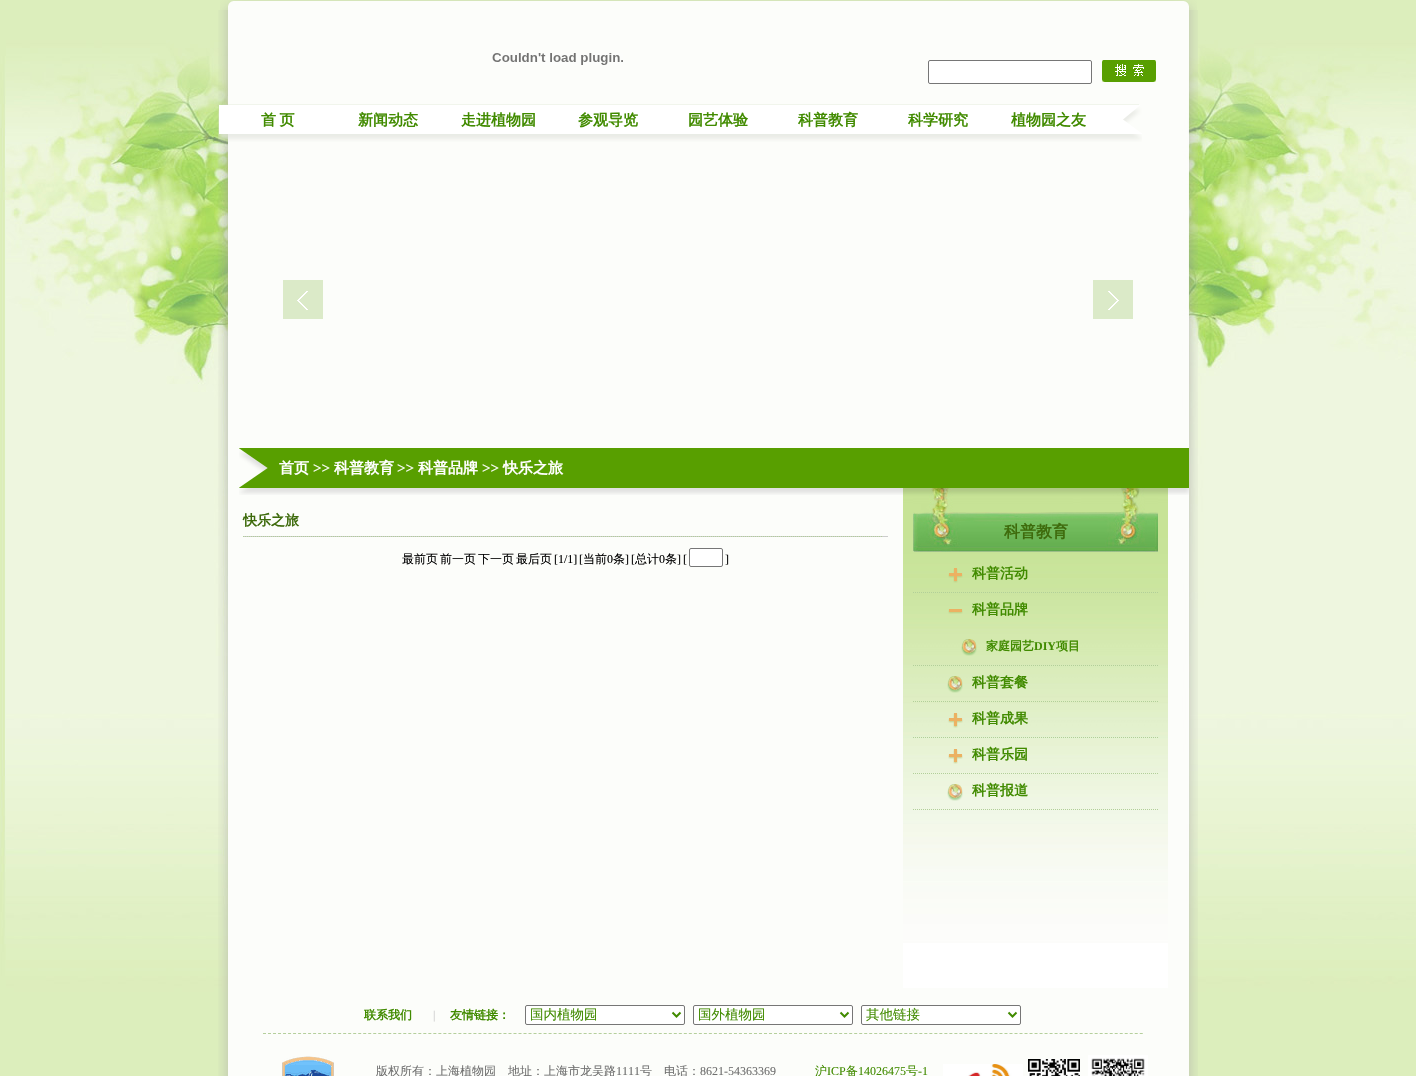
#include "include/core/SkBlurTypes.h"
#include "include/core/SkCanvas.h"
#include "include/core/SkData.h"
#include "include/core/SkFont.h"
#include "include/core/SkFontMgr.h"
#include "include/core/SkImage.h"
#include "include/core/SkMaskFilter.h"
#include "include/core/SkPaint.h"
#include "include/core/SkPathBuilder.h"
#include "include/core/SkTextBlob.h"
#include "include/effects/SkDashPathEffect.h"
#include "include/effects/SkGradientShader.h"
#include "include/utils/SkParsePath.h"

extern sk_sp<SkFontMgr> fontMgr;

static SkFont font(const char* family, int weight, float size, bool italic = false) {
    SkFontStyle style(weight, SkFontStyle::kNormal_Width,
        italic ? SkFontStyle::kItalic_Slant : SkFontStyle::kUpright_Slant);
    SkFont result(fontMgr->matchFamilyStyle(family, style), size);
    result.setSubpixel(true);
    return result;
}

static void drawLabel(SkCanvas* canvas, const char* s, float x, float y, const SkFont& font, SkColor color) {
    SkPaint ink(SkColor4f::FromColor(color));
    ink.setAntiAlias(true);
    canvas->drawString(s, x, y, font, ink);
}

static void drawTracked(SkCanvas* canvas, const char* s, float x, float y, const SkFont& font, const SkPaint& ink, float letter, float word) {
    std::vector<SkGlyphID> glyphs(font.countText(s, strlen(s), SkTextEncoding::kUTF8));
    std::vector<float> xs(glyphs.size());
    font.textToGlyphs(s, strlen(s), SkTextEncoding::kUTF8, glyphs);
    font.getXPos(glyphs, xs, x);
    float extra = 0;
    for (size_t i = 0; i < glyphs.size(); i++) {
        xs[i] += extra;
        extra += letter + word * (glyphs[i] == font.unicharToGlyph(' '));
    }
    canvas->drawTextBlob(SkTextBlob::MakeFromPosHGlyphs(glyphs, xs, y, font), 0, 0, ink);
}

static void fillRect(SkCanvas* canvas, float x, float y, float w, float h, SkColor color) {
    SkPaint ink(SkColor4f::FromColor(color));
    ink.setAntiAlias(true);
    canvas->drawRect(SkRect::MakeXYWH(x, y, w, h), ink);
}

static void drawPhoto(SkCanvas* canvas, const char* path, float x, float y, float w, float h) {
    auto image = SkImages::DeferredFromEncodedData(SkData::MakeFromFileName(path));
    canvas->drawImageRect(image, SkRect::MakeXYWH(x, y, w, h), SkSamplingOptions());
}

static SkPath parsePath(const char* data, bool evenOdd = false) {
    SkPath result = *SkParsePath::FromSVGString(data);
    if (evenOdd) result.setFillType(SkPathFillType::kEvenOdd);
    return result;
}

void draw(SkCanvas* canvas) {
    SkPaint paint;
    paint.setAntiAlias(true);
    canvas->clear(0xFFFFFFFF);
    drawPhoto(canvas, "assets/img1.png", 0, 0, 1416, 1076);
    drawPhoto(canvas, "assets/img2.png", 220, 0, 977, 10);
    drawPhoto(canvas, "assets/img3.png", 218, 10, 980, 1066);
    drawPhoto(canvas, "assets/img4.png", 492, 53, 131, 12);
    paint.setColor(0xFFFFFFFF);
    canvas->drawRoundRect(SkRect::MakeXYWH(928.5f, 60.5f, 163, 23), 1.5f, 1.5f, paint);
    paint.setStroke(true);
    paint.setStrokeWidth(1);
    paint.setColor(0xFF767676);
    canvas->drawRoundRect(SkRect::MakeXYWH(928.5f, 60.5f, 163, 23), 1.5f, 1.5f, paint);
    drawPhoto(canvas, "assets/img5.png", 1102, 60, 54, 22);
    drawPhoto(canvas, "assets/img6.png", 218, 104, 924, 38);
    SkFont font1 = font("WenQuanYi Zen Hei", 700, 15);
    paint.setStroke(false);
    paint.setColor(0xFF418B00);
    drawTracked(canvas, "首 页", 261, 125, font1, paint, 0, -1);
    drawLabel(canvas, "新闻动态", 358, 125, font1, 0xFF418B00);
    drawLabel(canvas, "走进植物园", 461, 125, font1, 0xFF418B00);
    drawLabel(canvas, "参观导览", 578, 125, font1, 0xFF418B00);
    drawLabel(canvas, "园艺体验", 688, 125, font1, 0xFF418B00);
    drawLabel(canvas, "科普教育", 798, 125, font1, 0xFF418B00);
    drawLabel(canvas, "科学研究", 908, 125, font1, 0xFF418B00);
    drawLabel(canvas, "植物园之友", 1011, 125, font1, 0xFF418B00);
    drawPhoto(canvas, "assets/img7.png", 283, 280, 850, 39);
    drawPhoto(canvas, "assets/img8.png", 239, 448, 950, 47);
    drawLabel(canvas, "首页", 279, 473, font1, 0xFFFFFFFF);
    SkFont font2 = font("Liberation Serif", 700, 15);
    drawLabel(canvas, ">>", 313, 473, font2, 0xFFFFFFFF);
    drawLabel(canvas, "科普教育", 334, 473, font1, 0xFFFFFFFF);
    drawLabel(canvas, ">>", 397, 473, font2, 0xFFFFFFFF);
    drawLabel(canvas, "科普品牌", 418, 473, font1, 0xFFFFFFFF);
    drawLabel(canvas, ">>", 482, 473, font2, 0xFFFFFFFF);
    drawLabel(canvas, "快乐之旅", 503, 473, font1, 0xFFFFFFFF);
    fillRect(canvas, 243, 536, 645, 1, 0xFFCCCCCC);
    paint.setStroke(true);
    paint.setColor(0xFFB2CF99);
    paint.setPathEffect(SkDashPathEffect::Make({{1, 1}}, 0));
    canvas->drawPath(parsePath("M243 536.5H883"), paint);
    paint.setPathEffect(nullptr);
    SkFont font3 = font("WenQuanYi Zen Hei", 700, 14);
    drawLabel(canvas, "快乐之旅", 243, 525, font3, 0xFF3E6B0C);
    SkFont font4 = font("WenQuanYi Zen Hei", 500, 12);
    drawLabel(canvas, "最前页", 402, 563, font4, 0xFF000000);
    drawLabel(canvas, "前一页", 440, 563, font4, 0xFF000000);
    drawLabel(canvas, "下一页", 478, 563, font4, 0xFF000000);
    drawLabel(canvas, "最后页", 516, 563, font4, 0xFF000000);
    SkFont font5 = font("Liberation Serif", 400, 12);
    drawLabel(canvas, "[1/1]", 554, 563, font5, 0xFF000000);
    drawLabel(canvas, "[", 579, 563, font5, 0xFF000000);
    drawLabel(canvas, "当前", 583, 563, font4, 0xFF000000);
    drawLabel(canvas, "0", 607, 563, font5, 0xFF000000);
    drawLabel(canvas, "条", 613, 563, font4, 0xFF000000);
    drawLabel(canvas, "]", 625, 563, font5, 0xFF000000);
    drawLabel(canvas, "[", 631, 563, font5, 0xFF000000);
    drawLabel(canvas, "总计", 635, 563, font4, 0xFF000000);
    drawLabel(canvas, "0", 659, 563, font5, 0xFF000000);
    drawLabel(canvas, "条", 665, 563, font4, 0xFF000000);
    drawLabel(canvas, "]", 677, 563, font5, 0xFF000000);
    drawLabel(canvas, "[", 683, 563, font5, 0xFF000000);
    paint.setStroke(false);
    paint.setColor(0xFFFFFFFF);
    canvas->drawRoundRect(SkRect::MakeXYWH(689.5f, 548.5f, 33, 18), 1.5f, 1.5f, paint);
    paint.setStroke(true);
    paint.setColor(0xFF767676);
    canvas->drawRoundRect(SkRect::MakeXYWH(689.5f, 548.5f, 33, 18), 1.5f, 1.5f, paint);
    drawLabel(canvas, "]", 725, 563, font5, 0xFF000000);
    fillRect(canvas, 903, 943, 265, 45, 0xFFFFFFFF);
    drawPhoto(canvas, "assets/img9.png", 903, 488, 265, 455);
    drawPhoto(canvas, "assets/img10.png", 913, 488, 245, 64);
    SkFont font6 = font("WenQuanYi Zen Hei", 700, 16);
    drawLabel(canvas, "科普教育", 1004, 537, font6, 0xFF3E6B0C);
    paint.setColor(0xFFB2CF99);
    paint.setPathEffect(SkDashPathEffect::Make({{1, 1}}, 0));
    canvas->drawPath(parsePath("M913 592.5H1158"), paint);
    paint.setPathEffect(nullptr);
    drawPhoto(canvas, "assets/img11.png", 948, 568, 15, 15);
    drawLabel(canvas, "科普活动", 972, 578, font3, 0xFF418B00);
    paint.setPathEffect(SkDashPathEffect::Make({{1, 1}}, 0));
    canvas->drawPath(parsePath("M913 665.5H1158"), paint);
    paint.setPathEffect(nullptr);
    drawPhoto(canvas, "assets/img12.png", 948, 609, 15, 5);
    drawLabel(canvas, "科普品牌", 972, 614, font3, 0xFF418B00);
    drawPhoto(canvas, "assets/img13.png", 961, 639, 16, 17);
    SkFont font7 = font("WenQuanYi Zen Hei", 700, 12);
    drawLabel(canvas, "家庭园艺", 986, 650, font7, 0xFF418B00);
    SkFont font8 = font("Liberation Serif", 700, 12);
    drawLabel(canvas, "DIY", 1034, 650, font8, 0xFF418B00);
    drawLabel(canvas, "项目", 1056, 650, font7, 0xFF418B00);
    paint.setPathEffect(SkDashPathEffect::Make({{1, 1}}, 0));
    canvas->drawPath(parsePath("M913 701.5H1158"), paint);
    paint.setPathEffect(nullptr);
    drawPhoto(canvas, "assets/img14.png", 947, 676, 16, 17);
    drawLabel(canvas, "科普套餐", 972, 687, font3, 0xFF418B00);
    paint.setPathEffect(SkDashPathEffect::Make({{1, 1}}, 0));
    canvas->drawPath(parsePath("M913 737.5H1158"), paint);
    paint.setPathEffect(nullptr);
    drawPhoto(canvas, "assets/img15.png", 948, 713, 15, 15);
    drawLabel(canvas, "科普成果", 972, 723, font3, 0xFF418B00);
    paint.setPathEffect(SkDashPathEffect::Make({{1, 1}}, 0));
    canvas->drawPath(parsePath("M913 773.5H1158"), paint);
    paint.setPathEffect(nullptr);
    drawPhoto(canvas, "assets/img16.png", 948, 749, 15, 15);
    drawLabel(canvas, "科普乐园", 972, 759, font3, 0xFF418B00);
    paint.setPathEffect(SkDashPathEffect::Make({{1, 1}}, 0));
    canvas->drawPath(parsePath("M913 809.5H1158"), paint);
    paint.setPathEffect(nullptr);
    drawPhoto(canvas, "assets/img17.png", 947, 784, 16, 17);
    drawLabel(canvas, "科普报道", 972, 795, font3, 0xFF418B00);
    drawLabel(canvas, "联系我们", 364, 1019, font7, 0xFF418B00);
    drawLabel(canvas, "|", 433, 1019, font5, 0xFFCCCCCC);
    drawLabel(canvas, "友情链接：", 450, 1019, font7, 0xFF418B00);
    paint.setStroke(false);
    paint.setColor(0xFFFFFFFF);
    canvas->drawRoundRect(SkRect::MakeXYWH(525.5f, 1005.5f, 159, 19), 1.5f, 1.5f, paint);
    paint.setStroke(true);
    paint.setColor(0xFF767676);
    canvas->drawRoundRect(SkRect::MakeXYWH(525.5f, 1005.5f, 159, 19), 1.5f, 1.5f, paint);
    paint.setStrokeWidth(2);
    paint.setColor(0xFF418B00);
    canvas->drawPath(parsePath("M672.5 1012.5L676.5 1016.5L680.5 1012.5"), paint);
    SkFont font9 = font("WenQuanYi Zen Hei", 500, 13.5f);
    drawLabel(canvas, "国内植物园", 530, 1019, font9, 0xFF418B00);
    paint.setStroke(false);
    paint.setColor(0xFFFFFFFF);
    canvas->drawRoundRect(SkRect::MakeXYWH(693.5f, 1005.5f, 159, 19), 1.5f, 1.5f, paint);
    paint.setStroke(true);
    paint.setStrokeWidth(1);
    paint.setColor(0xFF767676);
    canvas->drawRoundRect(SkRect::MakeXYWH(693.5f, 1005.5f, 159, 19), 1.5f, 1.5f, paint);
    paint.setStrokeWidth(2);
    paint.setColor(0xFF418B00);
    canvas->drawPath(parsePath("M840.5 1012.5L844.5 1016.5L848.5 1012.5"), paint);
    drawLabel(canvas, "国外植物园", 698, 1019, font9, 0xFF418B00);
    paint.setStroke(false);
    paint.setColor(0xFFFFFFFF);
    canvas->drawRoundRect(SkRect::MakeXYWH(861.5f, 1005.5f, 159, 19), 1.5f, 1.5f, paint);
    paint.setStroke(true);
    paint.setStrokeWidth(1);
    paint.setColor(0xFF767676);
    canvas->drawRoundRect(SkRect::MakeXYWH(861.5f, 1005.5f, 159, 19), 1.5f, 1.5f, paint);
    paint.setStrokeWidth(2);
    paint.setColor(0xFF418B00);
    canvas->drawPath(parsePath("M1008.5 1012.5L1012.5 1016.5L1016.5 1012.5"), paint);
    drawLabel(canvas, "其他链接", 866, 1019, font9, 0xFF418B00);
    paint.setStrokeWidth(1);
    paint.setColor(0xFFB5CF9C);
    paint.setPathEffect(SkDashPathEffect::Make({{3, 2.01f}}, 0));
    canvas->drawPath(parsePath("M263 1033.5H1143"), paint);
    paint.setPathEffect(nullptr);
    drawPhoto(canvas, "assets/img18.png", 282, 1056, 52, 20);
    drawLabel(canvas, "版权所有：上海植物园", 376, 1075, font4, 0xFF6F6F6F);
    drawLabel(canvas, "地址：上海市龙吴路", 508, 1075, font4, 0xFF6F6F6F);
    drawLabel(canvas, "1111", 616, 1075, font5, 0xFF6F6F6F);
    drawLabel(canvas, "号", 640, 1075, font4, 0xFF6F6F6F);
    drawLabel(canvas, "电话：", 664, 1075, font4, 0xFF6F6F6F);
    drawLabel(canvas, "8621-54363369", 700, 1075, font5, 0xFF6F6F6F);
    drawLabel(canvas, "沪", 815, 1075, font4, 0xFF418B00);
    drawLabel(canvas, "ICP", 827, 1075, font5, 0xFF418B00);
    drawLabel(canvas, "备", 846, 1075, font4, 0xFF418B00);
    drawLabel(canvas, "14026475", 858, 1075, font5, 0xFF418B00);
    drawLabel(canvas, "号", 906, 1075, font4, 0xFF418B00);
    drawLabel(canvas, "-1", 918, 1075, font5, 0xFF418B00);
    drawPhoto(canvas, "assets/img19.png", 943, 1064, 80, 12);
    drawPhoto(canvas, "assets/img20.png", 1028, 1059, 52, 17);
    drawPhoto(canvas, "assets/img21.png", 1088, 1055, 60, 21);
}
